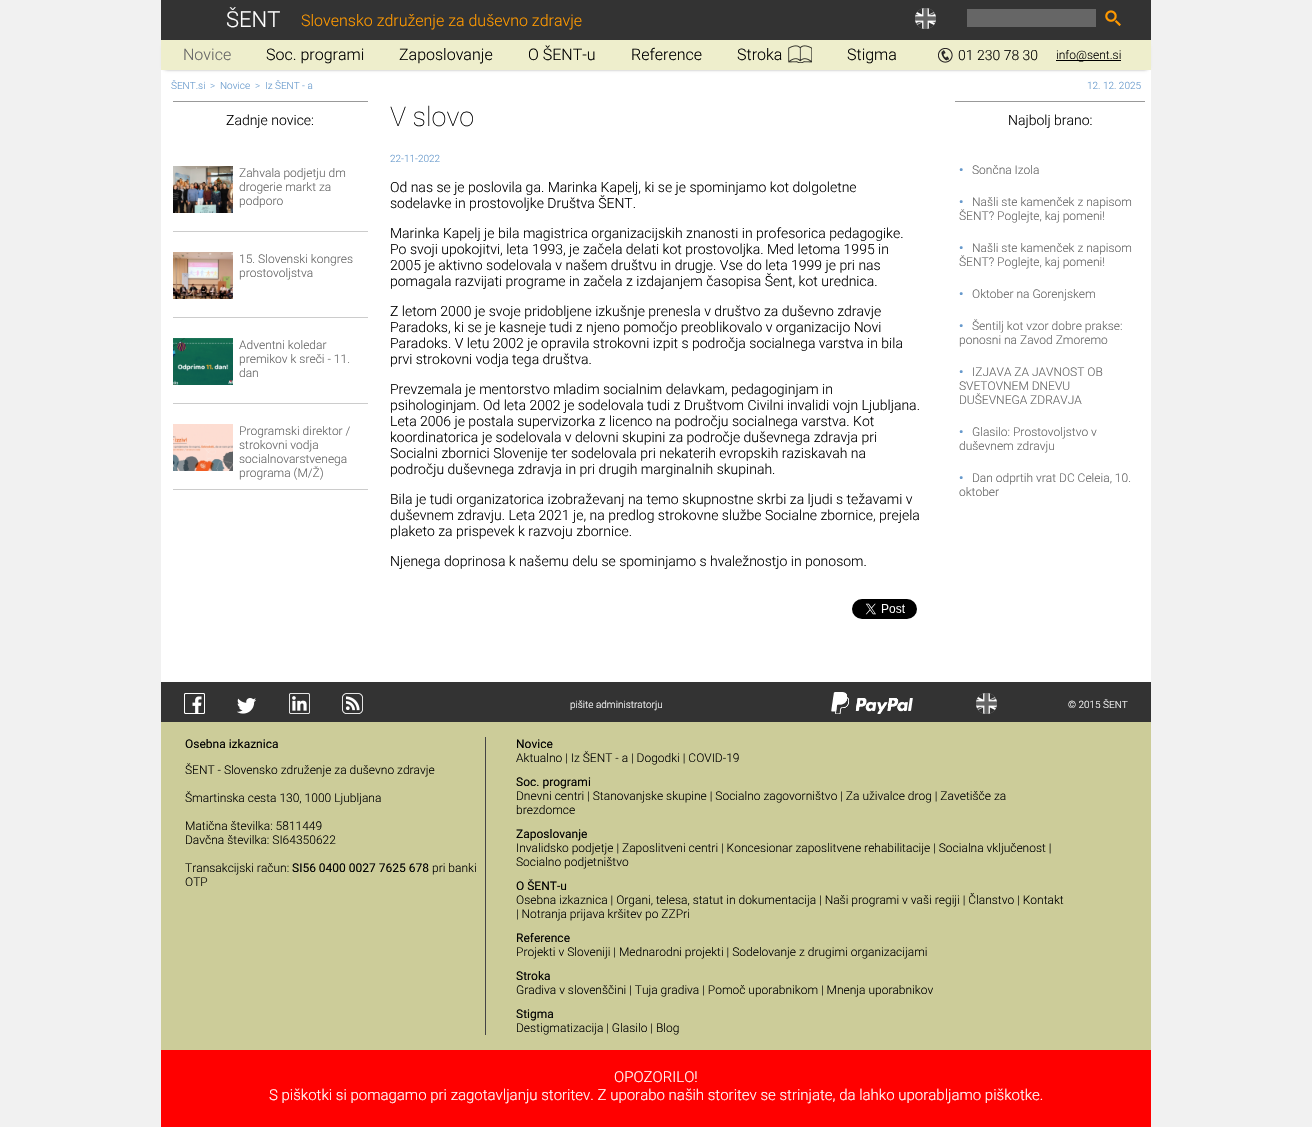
#include "include/core/SkBlurTypes.h"
#include "include/core/SkCanvas.h"
#include "include/core/SkData.h"
#include "include/core/SkFont.h"
#include "include/core/SkFontMgr.h"
#include "include/core/SkImage.h"
#include "include/core/SkMaskFilter.h"
#include "include/core/SkPaint.h"
#include "include/core/SkPathBuilder.h"
#include "include/core/SkTextBlob.h"
#include "include/effects/SkDashPathEffect.h"
#include "include/effects/SkGradientShader.h"
#include "include/utils/SkParsePath.h"

extern sk_sp<SkFontMgr> fontMgr;

static SkFont font(const char* family, int weight, float size, bool italic = false) {
    SkFontStyle style(weight, SkFontStyle::kNormal_Width,
        italic ? SkFontStyle::kItalic_Slant : SkFontStyle::kUpright_Slant);
    SkFont result(fontMgr->matchFamilyStyle(family, style), size);
    result.setSubpixel(true);
    return result;
}

static void drawLabel(SkCanvas* canvas, const char* s, float x, float y, const SkFont& font, SkColor color) {
    SkPaint ink(SkColor4f::FromColor(color));
    ink.setAntiAlias(true);
    canvas->drawString(s, x, y, font, ink);
}

static void fillRect(SkCanvas* canvas, float x, float y, float w, float h, SkColor color) {
    SkPaint ink(SkColor4f::FromColor(color));
    ink.setAntiAlias(true);
    canvas->drawRect(SkRect::MakeXYWH(x, y, w, h), ink);
}

static void drawPhoto(SkCanvas* canvas, const char* path, float x, float y, float w, float h) {
    auto image = SkImages::DeferredFromEncodedData(SkData::MakeFromFileName(path));
    canvas->drawImageRect(image, SkRect::MakeXYWH(x, y, w, h), SkSamplingOptions());
}

void draw(SkCanvas* canvas) {
    SkPaint paint;
    paint.setAntiAlias(true);
    canvas->clear(0xFFF1F1F1);
    fillRect(canvas, 161, 70, 990, 612, 0xFFFFFFFF);
    paint.setColor(0xFF000000);
    paint.setMaskFilter(SkMaskFilter::MakeBlur(kNormal_SkBlurStyle, 2));
    canvas->drawRect(SkRect::MakeXYWH(165, 46, 982, 22), paint);
    paint.setMaskFilter(nullptr);
    fillRect(canvas, 161, 0, 990, 40, 0xFF333333);
    SkFont font1 = font("Roboto", 300, 22);
    drawLabel(canvas, "ŠENT", 226, 27, font1, 0xFFFFFFFF);
    SkFont font2 = font("Roboto", 300, 16);
    drawLabel(canvas, "Slovensko združenje za duševno zdravje", 301, 26, font2, 0xFFFF9900);
    drawPhoto(canvas, "assets/img1.png", 915, 8, 21, 21);
    fillRect(canvas, 967, 9, 129, 18, 0xFF666666);
    drawPhoto(canvas, "assets/img2.png", 1105, 10, 16, 16);
    fillRect(canvas, 161, 40, 990, 30, 0xFFEEEECC);
    drawLabel(canvas, "Novice", 183, 60, font2, 0xFF666666);
    drawLabel(canvas, "Soc. programi", 266, 60, font2, 0xFF000000);
    drawLabel(canvas, "Zaposlovanje", 399, 60, font2, 0xFF000000);
    drawLabel(canvas, "O ŠENT-u", 528, 60, font2, 0xFF000000);
    drawLabel(canvas, "Reference", 631, 60, font2, 0xFF000000);
    drawLabel(canvas, "Stroka", 737, 60, font2, 0xFF000000);
    drawPhoto(canvas, "assets/img3.png", 788, 45, 24, 18);
    drawLabel(canvas, "Stigma", 847, 60, font2, 0xFF000000);
    drawPhoto(canvas, "assets/img4.png", 938, 48, 15, 15);
    SkFont font3 = font("Roboto", 300, 14);
    drawLabel(canvas, "01 230 78 30", 958, 60, font3, 0xFF000000);
    fillRect(canvas, 1056, 60, 65, 1, 0xFF000000);
    SkFont font4 = font("Roboto", 300, 12);
    drawLabel(canvas, "info@sent.si", 1056, 59, font4, 0xFF000000);
    SkFont font5 = font("Roboto", 300, 10);
    drawLabel(canvas, "ŠENT.si", 171, 89, font5, 0xFF6699CC);
    drawLabel(canvas, ">", 210, 89, font5, 0xFF6699CC);
    drawLabel(canvas, "Novice", 220, 89, font5, 0xFF6699CC);
    drawLabel(canvas, ">", 255, 89, font5, 0xFF6699CC);
    drawLabel(canvas, "Iz ŠENT - a", 265, 89, font5, 0xFF6699CC);
    drawLabel(canvas, "12. 12. 2025", 1087, 89, font5, 0xFF6699CC);
    fillRect(canvas, 173, 101, 195, 1, 0xFF999999);
    drawLabel(canvas, "Zadnje novice:", 226, 125, font3, 0xFF000000);
    fillRect(canvas, 173, 231, 195, 1, 0xFFCCCCCC);
    drawPhoto(canvas, "assets/img5.png", 173, 166, 60, 47);
    drawLabel(canvas, "Zahvala podjetju dm", 239, 177, font4, 0xFF666666);
    drawLabel(canvas, "drogerie markt za", 239, 191, font4, 0xFF666666);
    drawLabel(canvas, "podporo", 239, 205, font4, 0xFF666666);
    fillRect(canvas, 173, 317, 195, 1, 0xFFCCCCCC);
    drawPhoto(canvas, "assets/img6.png", 173, 252, 60, 47);
    drawLabel(canvas, "15. Slovenski kongres", 239, 263, font4, 0xFF666666);
    drawLabel(canvas, "prostovoljstva", 239, 277, font4, 0xFF666666);
    fillRect(canvas, 173, 403, 195, 1, 0xFFCCCCCC);
    drawPhoto(canvas, "assets/img7.png", 173, 338, 60, 47);
    drawLabel(canvas, "Adventni koledar", 239, 349, font4, 0xFF666666);
    drawLabel(canvas, "premikov k sreči - 11.", 239, 363, font4, 0xFF666666);
    drawLabel(canvas, "dan", 239, 377, font4, 0xFF666666);
    fillRect(canvas, 173, 489, 195, 1, 0xFFCCCCCC);
    drawPhoto(canvas, "assets/img8.png", 173, 424, 60, 47);
    drawLabel(canvas, "Programski direktor /", 239, 435, font4, 0xFF666666);
    drawLabel(canvas, "strokovni vodja", 239, 449, font4, 0xFF666666);
    drawLabel(canvas, "socialnovarstvenega", 239, 463, font4, 0xFF666666);
    drawLabel(canvas, "programa (M/Ž)", 239, 477, font4, 0xFF666666);
    SkFont font6 = font("Roboto", 100, 27);
    drawLabel(canvas, "V slovo", 390, 126, font6, 0xFF000000);
    drawLabel(canvas, "22-11-2022", 390, 162, font5, 0xFF6699CC);
    drawLabel(canvas, "Od nas se je poslovila ga. Marinka Kapelj, ki se je spominjamo kot dolgoletne", 390, 192, font3, 0xFF000000);
    drawLabel(canvas, "sodelavke in prostovoljke Društva ŠENT.", 390, 208, font3, 0xFF000000);
    drawLabel(canvas, "Marinka Kapelj je bila magistrica organizacijskih znanosti in profesorica pedagogike.", 390, 238, font3, 0xFF000000);
    drawLabel(canvas, "Po svoji upokojitvi, leta 1993, je začela delati kot prostovoljka. Med letoma 1995 in", 390, 254, font3, 0xFF000000);
    drawLabel(canvas, "2005 je aktivno sodelovala v našem društvu in drugje. Vse do leta 1999 je pri nas", 390, 270, font3, 0xFF000000);
    drawLabel(canvas, "pomagala razvijati programe in začela z izdajanjem časopisa Šent, kot urednica.", 390, 286, font3, 0xFF000000);
    drawLabel(canvas, "Z letom 2000 je svoje pridobljene izkušnje prenesla v društvo za duševno zdravje", 390, 316, font3, 0xFF000000);
    drawLabel(canvas, "Paradoks, ki se je kasneje tudi z njeno pomočjo preoblikovalo v organizacijo Novi", 390, 332, font3, 0xFF000000);
    drawLabel(canvas, "Paradoks. V letu 2002 je opravila strokovni izpit s področja socialnega varstva in bila", 390, 348, font3, 0xFF000000);
    drawLabel(canvas, "prvi strokovni vodja tega društva.", 390, 364, font3, 0xFF000000);
    drawLabel(canvas, "Prevzemala je mentorstvo mladim socialnim delavkam, pedagoginjam in", 390, 394, font3, 0xFF000000);
    drawLabel(canvas, "psihologinjam. Od leta 2002 je sodelovala tudi z Društvom Civilni invalidi vojn Ljubljana.", 390, 410, font3, 0xFF000000);
    drawLabel(canvas, "Leta 2006 je postala supervizorka z licenco na področju socialnega varstva. Kot", 390, 426, font3, 0xFF000000);
    drawLabel(canvas, "koordinatorica je sodelovala v delovni skupini za področje duševnega zdravja pri", 390, 442, font3, 0xFF000000);
    drawLabel(canvas, "Socialni zbornici Slovenije ter sodelovala pri nekaterih evropskih raziskavah na", 390, 458, font3, 0xFF000000);
    drawLabel(canvas, "področju duševnega zdravja in pri drugih marginalnih skupinah.", 390, 474, font3, 0xFF000000);
    drawLabel(canvas, "Bila je tudi organizatorica izobraževanj na temo skupnostne skrbi za ljudi s težavami v", 390, 504, font3, 0xFF000000);
    drawLabel(canvas, "duševnem zdravju. Leta 2021 je, na predlog strokovne službe Socialne zbornice, prejela", 390, 520, font3, 0xFF000000);
    drawLabel(canvas, "plaketo za prispevek k razvoju zbornice.", 390, 536, font3, 0xFF000000);
    drawLabel(canvas, "Njenega doprinosa k našemu delu se spominjamo s hvaležnostjo in ponosom.", 390, 566, font3, 0xFF000000);
    drawPhoto(canvas, "assets/img9.png", 852, 599, 65, 20);
    fillRect(canvas, 955, 101, 190, 1, 0xFF999999);
    drawLabel(canvas, "Najbolj brano:", 1008, 125, font3, 0xFF000000);
    SkFont font7 = font("Roboto", 700, 12);
    drawLabel(canvas, "•", 959, 174, font7, 0xFF6699CC);
    drawLabel(canvas, "Sončna Izola", 972, 174, font4, 0xFF666666);
    drawLabel(canvas, "•", 959, 206, font7, 0xFF6699CC);
    drawLabel(canvas, "Našli ste kamenček z napisom", 972, 206, font4, 0xFF666666);
    drawLabel(canvas, "ŠENT? Poglejte, kaj pomeni!", 959, 220, font4, 0xFF666666);
    drawLabel(canvas, "•", 959, 252, font7, 0xFF6699CC);
    drawLabel(canvas, "Našli ste kamenček z napisom", 972, 252, font4, 0xFF666666);
    drawLabel(canvas, "ŠENT? Poglejte, kaj pomeni!", 959, 266, font4, 0xFF666666);
    drawLabel(canvas, "•", 959, 298, font7, 0xFF6699CC);
    drawLabel(canvas, "Oktober na Gorenjskem", 972, 298, font4, 0xFF666666);
    drawLabel(canvas, "•", 959, 330, font7, 0xFF6699CC);
    drawLabel(canvas, "Šentilj kot vzor dobre prakse:", 972, 330, font4, 0xFF666666);
    drawLabel(canvas, "ponosni na Zavod Zmoremo", 959, 344, font4, 0xFF666666);
    drawLabel(canvas, "•", 959, 376, font7, 0xFF6699CC);
    drawLabel(canvas, "IZJAVA ZA JAVNOST OB", 972, 376, font4, 0xFF666666);
    drawLabel(canvas, "SVETOVNEM DNEVU", 959, 390, font4, 0xFF666666);
    drawLabel(canvas, "DUŠEVNEGA ZDRAVJA", 959, 404, font4, 0xFF666666);
    drawLabel(canvas, "•", 959, 436, font7, 0xFF6699CC);
    drawLabel(canvas, "Glasilo: Prostovoljstvo v", 972, 436, font4, 0xFF666666);
    drawLabel(canvas, "duševnem zdravju", 959, 450, font4, 0xFF666666);
    drawLabel(canvas, "•", 959, 482, font7, 0xFF6699CC);
    drawLabel(canvas, "Dan odprtih vrat DC Celeia, 10.", 972, 482, font4, 0xFF666666);
    drawLabel(canvas, "oktober", 959, 496, font4, 0xFF666666);
    fillRect(canvas, 161, 682, 990, 40, 0xFF333333);
    drawPhoto(canvas, "assets/img10.png", 184, 693, 21, 21);
    drawPhoto(canvas, "assets/img11.png", 237, 698, 19, 16);
    drawPhoto(canvas, "assets/img12.png", 289, 693, 21, 21);
    drawPhoto(canvas, "assets/img13.png", 342, 693, 21, 21);
    drawLabel(canvas, "pišite administratorju", 570, 708, font5, 0xFFFFFFFF);
    drawPhoto(canvas, "assets/img14.png", 831, 692, 82, 22);
    drawPhoto(canvas, "assets/img1.png", 976, 693, 21, 21);
    drawLabel(canvas, "© 2015 ŠENT", 1068, 708, font5, 0xFFFFFFFF);
    fillRect(canvas, 161, 722, 990, 328, 0xFFCCCC99);
    SkFont font8 = font("Roboto", 400, 12);
    drawLabel(canvas, "Osebna izkaznica", 185, 748, font8, 0xFF000000);
    drawLabel(canvas, "ŠENT - Slovensko združenje za duševno zdravje", 185, 774, font4, 0xFF000000);
    drawLabel(canvas, "Šmartinska cesta 130, 1000 Ljubljana", 185, 802, font4, 0xFF000000);
    drawLabel(canvas, "Matična številka: 5811449", 185, 830, font4, 0xFF000000);
    drawLabel(canvas, "Davčna številka: SI64350622", 185, 844, font4, 0xFF000000);
    drawLabel(canvas, "Transakcijski račun:", 185, 872, font4, 0xFF000000);
    drawLabel(canvas, "SI56 0400 0027 7625 678", 292, 872, font8, 0xFF000000);
    drawLabel(canvas, "pri banki", 432, 872, font4, 0xFF000000);
    drawLabel(canvas, "OTP", 185, 886, font4, 0xFF000000);
    fillRect(canvas, 485, 737, 1, 298, 0xFF444444);
    drawLabel(canvas, "Novice", 516, 748, font8, 0xFF000000);
    drawLabel(canvas, "Aktualno | Iz ŠENT - a | Dogodki | COVID-19", 516, 762, font4, 0xFF000000);
    drawLabel(canvas, "Soc. programi", 516, 786, font8, 0xFF000000);
    drawLabel(canvas, "Dnevni centri | Stanovanjske skupine | Socialno zagovorništvo | Za uživalce drog | Zavetišče za", 516, 800, font4, 0xFF000000);
    drawLabel(canvas, "brezdomce", 516, 814, font4, 0xFF000000);
    drawLabel(canvas, "Zaposlovanje", 516, 838, font8, 0xFF000000);
    drawLabel(canvas, "Invalidsko podjetje | Zaposlitveni centri | Koncesionar zaposlitvene rehabilitacije | Socialna vključenost |", 516, 852, font4, 0xFF000000);
    drawLabel(canvas, "Socialno podjetništvo", 516, 866, font4, 0xFF000000);
    drawLabel(canvas, "O ŠENT-u", 516, 890, font8, 0xFF000000);
    drawLabel(canvas, "Osebna izkaznica | Organi, telesa, statut in dokumentacija | Naši programi v vaši regiji | Članstvo | Kontakt", 516, 904, font4, 0xFF000000);
    drawLabel(canvas, "| Notranja prijava kršitev po ZZPri", 516, 918, font4, 0xFF000000);
    drawLabel(canvas, "Reference", 516, 942, font8, 0xFF000000);
    drawLabel(canvas, "Projekti v Sloveniji | Mednarodni projekti | Sodelovanje z drugimi organizacijami", 516, 956, font4, 0xFF000000);
    drawLabel(canvas, "Stroka", 516, 980, font8, 0xFF000000);
    drawLabel(canvas, "Gradiva v slovenščini | Tuja gradiva | Pomoč uporabnikom | Mnenja uporabnikov", 516, 994, font4, 0xFF000000);
    drawLabel(canvas, "Stigma", 516, 1018, font8, 0xFF000000);
    drawLabel(canvas, "Destigmatizacija | Glasilo | Blog", 516, 1032, font4, 0xFF000000);
    fillRect(canvas, 161, 1050, 990, 77, 0xFFFF0000);
    SkFont font9 = font("Roboto", 300, 15);
    drawLabel(canvas, "OPOZORILO!", 614, 1082, font9, 0xFFFFFFFF);
    drawLabel(canvas, "S piškotki si pomagamo pri zagotavljanju storitev. Z uporabo naših storitev se strinjate, da lahko uporabljamo piškotke.", 269, 1100, font9, 0xFFFFFFFF);
}
